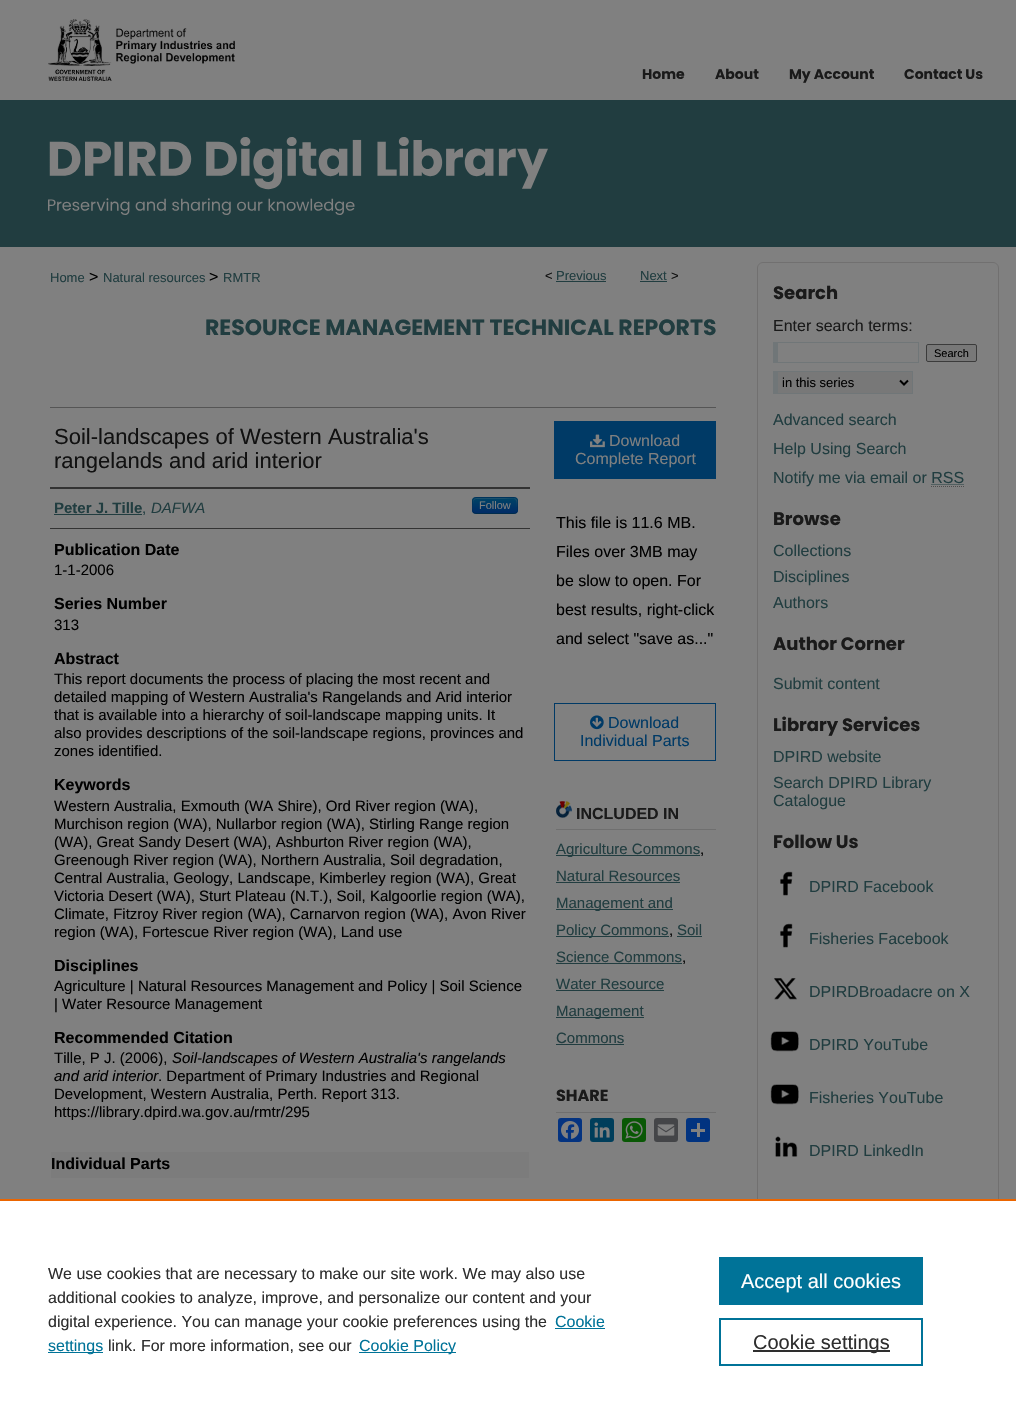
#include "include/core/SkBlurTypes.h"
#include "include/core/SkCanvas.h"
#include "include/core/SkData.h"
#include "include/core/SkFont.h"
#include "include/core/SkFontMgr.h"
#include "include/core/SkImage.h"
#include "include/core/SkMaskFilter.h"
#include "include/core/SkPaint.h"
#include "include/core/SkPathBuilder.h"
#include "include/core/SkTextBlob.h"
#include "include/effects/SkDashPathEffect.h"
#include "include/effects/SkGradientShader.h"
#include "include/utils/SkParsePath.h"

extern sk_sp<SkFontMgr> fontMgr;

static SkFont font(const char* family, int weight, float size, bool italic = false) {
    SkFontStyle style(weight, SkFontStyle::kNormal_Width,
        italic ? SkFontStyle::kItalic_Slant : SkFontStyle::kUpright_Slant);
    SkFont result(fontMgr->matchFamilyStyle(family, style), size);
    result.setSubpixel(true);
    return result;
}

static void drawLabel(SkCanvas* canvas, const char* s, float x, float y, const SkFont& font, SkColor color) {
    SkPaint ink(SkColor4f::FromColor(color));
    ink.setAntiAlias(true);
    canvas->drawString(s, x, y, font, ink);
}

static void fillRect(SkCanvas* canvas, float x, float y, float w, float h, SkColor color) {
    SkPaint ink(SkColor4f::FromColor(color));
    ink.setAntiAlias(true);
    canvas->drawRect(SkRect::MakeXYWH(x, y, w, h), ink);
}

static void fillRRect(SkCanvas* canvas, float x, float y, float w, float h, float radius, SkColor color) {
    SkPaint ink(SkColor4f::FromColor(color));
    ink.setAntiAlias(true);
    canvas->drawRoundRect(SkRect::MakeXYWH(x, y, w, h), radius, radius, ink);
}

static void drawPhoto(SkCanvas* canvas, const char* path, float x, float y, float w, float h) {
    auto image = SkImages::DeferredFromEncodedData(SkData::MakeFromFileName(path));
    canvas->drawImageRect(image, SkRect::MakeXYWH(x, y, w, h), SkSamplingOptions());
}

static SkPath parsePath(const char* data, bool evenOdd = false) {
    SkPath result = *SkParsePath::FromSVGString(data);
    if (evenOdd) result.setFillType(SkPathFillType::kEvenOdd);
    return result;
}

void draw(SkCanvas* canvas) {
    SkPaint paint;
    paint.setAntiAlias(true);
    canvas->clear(0xFF808080);
    fillRect(canvas, 0, 100, 1016, 147, 0xFF213D40);
    drawPhoto(canvas, "assets/img1.png", 48, 19, 187, 62);
    SkFont font1 = font("Poppins", 700, 14);
    drawLabel(canvas, "Home", 642, 79, font1, 0xFF1A1A1A);
    drawLabel(canvas, "About", 715, 79, font1, 0xFF1A1A1A);
    drawLabel(canvas, "My Account", 789, 79, font1, 0xFF1A1A1A);
    drawLabel(canvas, "Contact Us", 904, 79, font1, 0xFF1A1A1A);
    drawPhoto(canvas, "assets/img2.png", 48, 137, 500, 78);
    SkFont font2 = font("Liberation Sans", 400, 13);
    drawLabel(canvas, "Home", 50, 282, font2, 0xFF213D40);
    SkFont font3 = font("Liberation Sans", 400, 16);
    drawLabel(canvas, ">", 89, 282, font3, 0xFF000000);
    drawLabel(canvas, "Natural resources", 103, 282, font2, 0xFF213D40);
    drawLabel(canvas, ">", 209, 282, font3, 0xFF000000);
    drawLabel(canvas, "RMTR", 223, 282, font2, 0xFF213D40);
    drawLabel(canvas, "<", 545, 280, font2, 0xFF111111);
    drawLabel(canvas, "Previous", 556, 280, font2, 0xFF213D40);
    fillRect(canvas, 556, 281, 50, 1, 0xFF213D40);
    drawLabel(canvas, "Next", 640, 280, font2, 0xFF213D40);
    fillRect(canvas, 640, 281, 27, 1, 0xFF213D40);
    drawLabel(canvas, ">", 671, 280, font2, 0xFF111111);
    SkFont font4 = font("Poppins", 700, 22);
    drawLabel(canvas, "RESOURCE MANAGEMENT TECHNICAL REPORTS", 205, 335, font4, 0xFF213D40);
    fillRect(canvas, 50, 407, 666, 1, 0xFF555555);
    SkFont font5 = font("Liberation Sans", 400, 22);
    drawLabel(canvas, "Soil-landscapes of Western Australia's", 54, 444, font5, 0xFF111111);
    drawLabel(canvas, "rangelands and arid interior", 54, 468, font5, 0xFF111111);
    fillRect(canvas, 50, 487, 480, 2, 0xFF333333);
    fillRect(canvas, 50, 528, 480, 1, 0xFF333333);
    SkFont font6 = font("Liberation Sans", 700, 15);
    drawLabel(canvas, "Peter J. Tille", 54, 513, font6, 0xFF213D40);
    fillRect(canvas, 54, 514, 88, 1, 0xFF213D40);
    SkFont font7 = font("Liberation Sans", 400, 15);
    drawLabel(canvas, ",", 142, 513, font7, 0xFF213D40);
    SkFont font8 = font("Liberation Sans", 400, 15, true);
    drawLabel(canvas, "DAFWA", 151, 513, font8, 0xFF213D40);
    fillRRect(canvas, 472, 497, 46, 17, 4, 0xFF003A66);
    canvas->save();
    canvas->clipPath(parsePath("M476 497H514C516 497 518 499 518 501V510C518 512 516 514 514 514H476C474 514 472 512 472 510V501C472 499 474 497 476 497Z"), true);
    {
        const SkColor colors[] = {0xFF004466, 0xFF002B66};
        const float stops[] = {0, 1};
        const SkPoint ends[] = {{495, 498}, {495, 513}};
        paint.setShader(SkGradientShader::MakeLinear(ends, colors, stops, 2, SkTileMode::kClamp));
        paint.setAlpha(255);
    }
    canvas->drawRect(SkRect::MakeXYWH(472, 498, 46, 15), paint);
    canvas->restore();
    paint.setShader(nullptr);
    paint.setColor(0x33808080);
    canvas->drawPath(parsePath("M476 499H501C515 499 517 495 517 510C517 499 520 498 508 498H482C475 498 473 497 473 504V511C473 508 472 499 476 499Z"), paint);
    paint.setStroke(true);
    paint.setStrokeWidth(1);
    paint.setColor(0x40000000);
    canvas->drawPath(parsePath("M516.5 512.5C516 513 515 513.5 514 513.5H476C475 513.5 474 513 473.5 512.5"), paint);
    paint.setColor(0x1A000000);
    canvas->drawPath(parsePath("M473.5 512.5C472 510.5 472.5 507.5 472.5 505.5C472.5 496.5 473 497.5 482.5 497.5H507.5C517 497.5 517.5 496.5 517.5 505.5C517.5 507.5 518 510.5 516.5 512.5"), paint);
    SkFont font9 = font("Liberation Sans", 400, 11);
    drawLabel(canvas, "Follow", 479, 509, font9, 0xFF808080);
    SkFont font10 = font("Liberation Sans", 700, 16);
    drawLabel(canvas, "Publication Date", 54, 555, font10, 0xFF000000);
    drawLabel(canvas, "1-1-2006", 54, 575, font7, 0xFF000000);
    drawLabel(canvas, "Series Number", 54, 609, font10, 0xFF000000);
    drawLabel(canvas, "313", 54, 630, font7, 0xFF000000);
    drawLabel(canvas, "Abstract", 54, 664, font10, 0xFF000000);
    drawLabel(canvas, "This report documents the process of placing the most recent and", 54, 684, font7, 0xFF000000);
    drawLabel(canvas, "detailed mapping of Western Australia's Rangelands and Arid interior", 54, 702, font7, 0xFF000000);
    drawLabel(canvas, "that is available into a hierarchy of soil-landscape mapping units. It", 54, 720, font7, 0xFF000000);
    drawLabel(canvas, "also provides descriptions of the soil-landscape regions, provinces and", 54, 738, font7, 0xFF000000);
    drawLabel(canvas, "zones identified.", 54, 756, font7, 0xFF000000);
    drawLabel(canvas, "Keywords", 54, 790, font10, 0xFF000000);
    drawLabel(canvas, "Western Australia, Exmouth (WA Shire), Ord River region (WA),", 54, 811, font7, 0xFF000000);
    drawLabel(canvas, "Murchison region (WA), Nullarbor region (WA), Stirling Range region", 54, 829, font7, 0xFF000000);
    drawLabel(canvas, "(WA), Great Sandy Desert (WA), Ashburton River region (WA),", 54, 847, font7, 0xFF000000);
    drawLabel(canvas, "Greenough River region (WA), Northern Australia, Soil degradation,", 54, 865, font7, 0xFF000000);
    drawLabel(canvas, "Central Australia, Geology, Landscape, Kimberley region (WA), Great", 54, 883, font7, 0xFF000000);
    drawLabel(canvas, "Victoria Desert (WA), Sturt Plateau (N.T.), Soil, Kalgoorlie region (WA),", 54, 901, font7, 0xFF000000);
    drawLabel(canvas, "Climate, Fitzroy River region (WA), Carnarvon region (WA), Avon River", 54, 919, font7, 0xFF000000);
    drawLabel(canvas, "region (WA), Fortescue River region (WA), Land use", 54, 937, font7, 0xFF000000);
    drawLabel(canvas, "Disciplines", 54, 971, font10, 0xFF000000);
    drawLabel(canvas, "Agriculture | Natural Resources Management and Policy | Soil Science", 54, 991, font7, 0xFF000000);
    drawLabel(canvas, "| Water Resource Management", 54, 1009, font7, 0xFF000000);
    drawLabel(canvas, "Recommended Citation", 54, 1043, font10, 0xFF000000);
    drawLabel(canvas, "Tille, P J. (2006),", 54, 1063, font7, 0xFF000000);
    drawLabel(canvas, "Soil-landscapes of Western Australia's rangelands", 172, 1063, font8, 0xFF000000);
    drawLabel(canvas, "and arid interior", 54, 1081, font8, 0xFF000000);
    drawLabel(canvas, ". Department of Primary Industries and Regional", 158, 1081, font7, 0xFF000000);
    drawLabel(canvas, "Development, Western Australia, Perth. Report 313.", 54, 1099, font7, 0xFF000000);
    drawLabel(canvas, "https://library.dpird.wa.gov.au/rmtr/295", 54, 1117, font7, 0xFF000000);
    fillRect(canvas, 51, 1152, 478, 26, 0xFF7C7C7C);
    drawLabel(canvas, "Individual Parts", 51, 1169, font10, 0xFF000000);
    fillRect(canvas, 554, 421, 162, 58, 0xFF003A66);
    drawPhoto(canvas, "assets/img3.png", 590, 434, 15, 14);
    drawLabel(canvas, "Download", 609, 446, font3, 0xFF808080);
    drawLabel(canvas, "Complete Report", 575, 464, font3, 0xFF808080);
    drawLabel(canvas, "This file is 11.6 MB.", 556, 528, font3, 0xFF000000);
    drawLabel(canvas, "Files over 3MB may", 556, 557, font3, 0xFF000000);
    drawLabel(canvas, "be slow to open. For", 556, 586, font3, 0xFF000000);
    drawLabel(canvas, "best results, right-click", 556, 615, font3, 0xFF000000);
    drawLabel(canvas, "and select \"save as...\"", 556, 644, font3, 0xFF000000);
    paint.setColor(0xFF003A66);
    canvas->drawRect(SkRect::MakeXYWH(554.5f, 703.5f, 161, 57), paint);
    drawPhoto(canvas, "assets/img4.png", 590, 715, 14, 15);
    drawLabel(canvas, "Download", 608, 728, font3, 0xFF003A66);
    drawLabel(canvas, "Individual Parts", 580, 746, font3, 0xFF003A66);
    drawPhoto(canvas, "assets/img5.png", 556, 801, 16, 17);
    fillRect(canvas, 556, 829, 160, 1, 0xFF6F6F6F);
    drawLabel(canvas, "INCLUDED IN", 576, 819, font10, 0xFF1A1A1A);
    fillRect(canvas, 556, 855, 144, 1, 0xFF213D40);
    drawLabel(canvas, "Agriculture Commons", 556, 854, font7, 0xFF213D40);
    drawLabel(canvas, ",", 700, 854, font7, 0xFF000000);
    drawLabel(canvas, "Natural Resources", 556, 881, font7, 0xFF213D40);
    fillRect(canvas, 556, 882, 124, 1, 0xFF213D40);
    fillRect(canvas, 556, 909, 117, 1, 0xFF213D40);
    drawLabel(canvas, "Management and", 556, 908, font7, 0xFF213D40);
    fillRect(canvas, 556, 936, 113, 1, 0xFF213D40);
    drawLabel(canvas, "Policy Commons", 556, 935, font7, 0xFF213D40);
    drawLabel(canvas, ",", 669, 935, font7, 0xFF000000);
    drawLabel(canvas, "Soil", 677, 935, font7, 0xFF213D40);
    fillRect(canvas, 677, 936, 25, 1, 0xFF213D40);
    drawLabel(canvas, "Science Commons", 556, 962, font7, 0xFF213D40);
    fillRect(canvas, 556, 963, 126, 1, 0xFF213D40);
    drawLabel(canvas, ",", 682, 962, font7, 0xFF000000);
    drawLabel(canvas, "Water Resource", 556, 989, font7, 0xFF213D40);
    fillRect(canvas, 556, 990, 108, 1, 0xFF213D40);
    fillRect(canvas, 556, 1017, 88, 1, 0xFF213D40);
    drawLabel(canvas, "Management", 556, 1016, font7, 0xFF213D40);
    drawLabel(canvas, "Commons", 556, 1043, font7, 0xFF213D40);
    fillRect(canvas, 556, 1044, 68, 1, 0xFF213D40);
    fillRect(canvas, 556, 1112, 160, 1, 0xFF6F6F6F);
    SkFont font11 = font("Poppins", 700, 16);
    drawLabel(canvas, "SHARE", 556, 1101, font11, 0xFF1A1A1A);
    fillRRect(canvas, 558, 1118, 24, 24, 3, 0xFF043380);
    drawPhoto(canvas, "assets/img6.png", 561, 1121, 18, 18);
    fillRRect(canvas, 590, 1118, 24, 24, 3, 0xFF003E5B);
    drawPhoto(canvas, "assets/img7.png", 594, 1122, 16, 16);
    fillRRect(canvas, 622, 1118, 24, 24, 3, 0xFF095805);
    drawPhoto(canvas, "assets/img8.png", 625, 1121, 18, 18);
    fillRRect(canvas, 654, 1118, 24, 24, 3, 0xFF444548);
    drawPhoto(canvas, "assets/img9.png", 657, 1124, 18, 12);
    fillRRect(canvas, 686, 1118, 24, 24, 3, 0xFF013380);
    fillRect(canvas, 697, 1123, 3, 14, 0xFF808080);
    fillRect(canvas, 691, 1129, 14, 3, 0xFF808080);
    paint.setColor(0xFF213D40);
    paint.setPathEffect(SkDashPathEffect::Make({{1, 1}}, 0));
    canvas->drawPath(parsePath("M931.5 484.5H964"), paint);
    paint.setPathEffect(nullptr);
    drawLabel(canvas, "Notify me via email or RSS", 773, 483, font3, 0xFF213D40);
    paint.setColor(0xFF4D4D4D);
    paint.setPathEffect(SkDashPathEffect::Make({{1, 1}}, 0));
    canvas->drawPath(parsePath("M931 486.5H964"), paint);
    paint.setPathEffect(nullptr);
    drawPhoto(canvas, "assets/img10.png", 780, 871, 13, 25);
    drawPhoto(canvas, "assets/img10.png", 780, 923, 13, 25);
    drawPhoto(canvas, "assets/img11.png", 774, 978, 23, 22);
    drawPhoto(canvas, "assets/img12.png", 770, 1031, 29, 21);
    drawPhoto(canvas, "assets/img12.png", 770, 1084, 29, 21);
    drawPhoto(canvas, "assets/img13.png", 775, 1136, 23, 21);
    paint.setColor(0xFF717070);
    canvas->drawRoundRect(SkRect::MakeXYWH(757.5f, 262.5f, 241, 953), 5.5f, 5.5f, paint);
    SkFont font12 = font("Poppins", 700, 18);
    drawLabel(canvas, "Search", 773, 299, font12, 0xFF1A1A1A);
    drawLabel(canvas, "Enter search terms:", 773, 331, font3, 0xFF1A1A1A);
    fillRect(canvas, 773, 342, 146, 1, 0xFF707678);
    fillRect(canvas, 918, 342, 1, 21, 0xFF707678);
    fillRect(canvas, 773, 362, 146, 1, 0xFF707678);
    fillRect(canvas, 773, 342, 5, 21, 0xFF707678);
    paint.setStroke(false);
    paint.setColor(0xFF787878);
    canvas->drawRoundRect(SkRect::MakeXYWH(926.5f, 344.5f, 50, 17), 1.5f, 1.5f, paint);
    paint.setStroke(true);
    paint.setColor(0xFF3B3B3B);
    canvas->drawRoundRect(SkRect::MakeXYWH(926.5f, 344.5f, 50, 17), 1.5f, 1.5f, paint);
    drawLabel(canvas, "Search", 934, 357, font9, 0xFF000000);
    fillRect(canvas, 778, 372, 134, 21, 0xFF787878);
    fillRect(canvas, 773, 371, 140, 1, 0xFF707678);
    fillRect(canvas, 912, 371, 1, 23, 0xFF707678);
    fillRect(canvas, 773, 393, 140, 1, 0xFF707678);
    fillRect(canvas, 773, 371, 5, 23, 0xFF707678);
    paint.setStrokeWidth(2);
    paint.setColor(0xFF000000);
    canvas->drawPath(parsePath("M900 380.5L904 384.5L908 380.5"), paint);
    drawLabel(canvas, "in this series", 782, 387, font2, 0xFF000000);
    drawLabel(canvas, "Advanced search", 773, 425, font3, 0xFF213D40);
    drawLabel(canvas, "Help Using Search", 773, 454, font3, 0xFF213D40);
    drawLabel(canvas, "Browse", 773, 525, font12, 0xFF1A1A1A);
    drawLabel(canvas, "Collections", 773, 556, font3, 0xFF213D40);
    drawLabel(canvas, "Disciplines", 773, 582, font3, 0xFF213D40);
    drawLabel(canvas, "Authors", 773, 608, font3, 0xFF213D40);
    drawLabel(canvas, "Author Corner", 773, 650, font12, 0xFF1A1A1A);
    drawLabel(canvas, "Submit content", 773, 689, font3, 0xFF213D40);
    drawLabel(canvas, "Library Services", 773, 731, font12, 0xFF1A1A1A);
    drawLabel(canvas, "DPIRD website", 773, 762, font3, 0xFF213D40);
    drawLabel(canvas, "Search DPIRD Library", 773, 788, font3, 0xFF213D40);
    drawLabel(canvas, "Catalogue", 773, 806, font3, 0xFF213D40);
    drawLabel(canvas, "Follow Us", 773, 848, font12, 0xFF1A1A1A);
    drawLabel(canvas, "DPIRD Facebook", 809, 892, font3, 0xFF213D40);
    drawLabel(canvas, "Fisheries Facebook", 809, 944, font3, 0xFF213D40);
    drawLabel(canvas, "DPIRDBroadacre on X", 809, 997, font3, 0xFF213D40);
    drawLabel(canvas, "DPIRD YouTube", 809, 1050, font3, 0xFF213D40);
    drawLabel(canvas, "Fisheries YouTube", 809, 1103, font3, 0xFF213D40);
    drawLabel(canvas, "DPIRD LinkedIn", 809, 1156, font3, 0xFF213D40);
    fillRect(canvas, 0, 1201, 1016, 218, 0xFFFFFFFF);
    fillRect(canvas, 0, 1199, 1016, 2, 0xFFEB6500);
    drawLabel(canvas, "We use cookies that are necessary to make our site work. We may also use", 48, 1279, font3, 0xFF2E2E2E);
    drawLabel(canvas, "additional cookies to analyze, improve, and personalize our content and your", 48, 1303, font3, 0xFF2E2E2E);
    drawLabel(canvas, "digital experience. You can manage your cookie preferences using the", 48, 1327, font3, 0xFF2E2E2E);
    drawLabel(canvas, "Cookie", 555, 1327, font3, 0xFF007398);
    fillRect(canvas, 555, 1328, 50, 1, 0xFF007398);
    fillRect(canvas, 48, 1352, 55, 1, 0xFF007398);
    drawLabel(canvas, "settings", 48, 1351, font3, 0xFF007398);
    drawLabel(canvas, "link. For more information, see our", 108, 1351, font3, 0xFF2E2E2E);
    fillRect(canvas, 359, 1352, 97, 1, 0xFF007398);
    drawLabel(canvas, "Cookie Policy", 359, 1351, font3, 0xFF007398);
    fillRect(canvas, 719, 1257, 204, 48, 0xFF007398);
    SkFont font13 = font("Liberation Sans", 400, 20);
    drawLabel(canvas, "Accept all cookies", 741, 1288, font13, 0xFFFFFFFF);
    paint.setColor(0xFF007398);
    canvas->drawRect(SkRect::MakeXYWH(720, 1319, 202, 46), paint);
    fillRect(canvas, 753, 1350, 137, 2, 0xFF2E2E2E);
    drawLabel(canvas, "Cookie settings", 753, 1349, font13, 0xFF2E2E2E);
}
